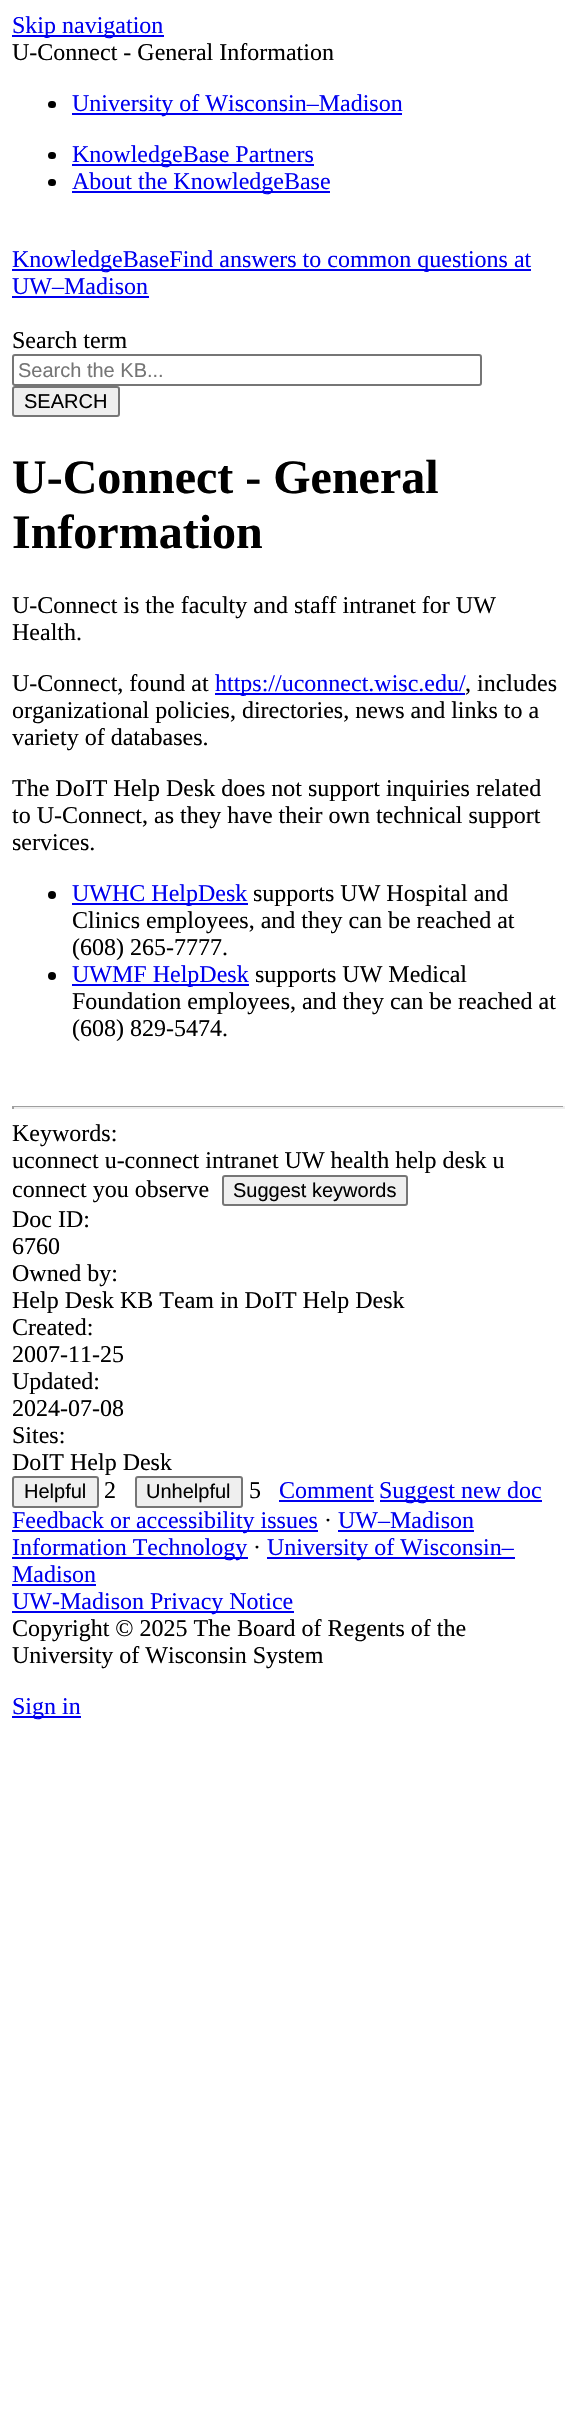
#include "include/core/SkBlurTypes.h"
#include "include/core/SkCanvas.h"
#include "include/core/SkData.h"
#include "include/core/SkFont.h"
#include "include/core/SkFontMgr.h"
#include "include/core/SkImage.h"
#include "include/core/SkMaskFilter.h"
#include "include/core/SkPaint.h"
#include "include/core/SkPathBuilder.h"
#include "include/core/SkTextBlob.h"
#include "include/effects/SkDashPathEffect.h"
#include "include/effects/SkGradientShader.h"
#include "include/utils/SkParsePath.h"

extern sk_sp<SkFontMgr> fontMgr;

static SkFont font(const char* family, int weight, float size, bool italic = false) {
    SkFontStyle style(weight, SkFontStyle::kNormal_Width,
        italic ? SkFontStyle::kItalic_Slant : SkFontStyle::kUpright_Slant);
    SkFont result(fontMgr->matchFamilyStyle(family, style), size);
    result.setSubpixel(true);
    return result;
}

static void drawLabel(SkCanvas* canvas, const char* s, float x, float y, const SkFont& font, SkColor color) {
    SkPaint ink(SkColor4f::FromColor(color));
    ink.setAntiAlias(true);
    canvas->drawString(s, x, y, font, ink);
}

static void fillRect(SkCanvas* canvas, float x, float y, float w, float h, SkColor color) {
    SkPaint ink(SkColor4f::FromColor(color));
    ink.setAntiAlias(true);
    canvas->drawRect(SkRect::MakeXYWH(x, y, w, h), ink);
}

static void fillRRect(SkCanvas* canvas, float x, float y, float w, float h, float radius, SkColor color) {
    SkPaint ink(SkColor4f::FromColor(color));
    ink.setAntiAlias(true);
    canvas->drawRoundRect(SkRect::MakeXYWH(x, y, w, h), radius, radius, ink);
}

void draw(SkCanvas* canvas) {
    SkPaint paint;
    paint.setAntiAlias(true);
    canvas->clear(0xFFFFFFFF);
    fillRect(canvas, 12, 35, 152, 2, 0xFF0000EE);
    SkFont font1 = font("Liberation Serif", 400, 24);
    drawLabel(canvas, "Skip navigation", 12, 33, font1, 0xFF0000EE);
    drawLabel(canvas, "U-Connect - General Information", 12, 60, font1, 0xFF000000);
    fillRRect(canvas, 48, 101, 8, 7, 3.5f, 0xFF000000);
    fillRect(canvas, 72, 113, 330, 2, 0xFF0000EE);
    drawLabel(canvas, "University of Wisconsin–Madison", 72, 111, font1, 0xFF0000EE);
    fillRRect(canvas, 48, 152, 8, 7, 3.5f, 0xFF000000);
    fillRect(canvas, 72, 164, 242, 2, 0xFF0000EE);
    drawLabel(canvas, "KnowledgeBase Partners", 72, 162, font1, 0xFF0000EE);
    fillRRect(canvas, 48, 179, 8, 7, 3.5f, 0xFF000000);
    fillRect(canvas, 72, 191, 258, 2, 0xFF0000EE);
    drawLabel(canvas, "About the KnowledgeBase", 72, 189, font1, 0xFF0000EE);
    fillRect(canvas, 12, 269, 519, 2, 0xFF0000EE);
    drawLabel(canvas, "KnowledgeBaseFind answers to common questions at", 12, 267, font1, 0xFF0000EE);
    drawLabel(canvas, "UW–Madison", 12, 294, font1, 0xFF0000EE);
    fillRect(canvas, 12, 296, 137, 2, 0xFF0000EE);
    drawLabel(canvas, "Search term", 12, 348, font1, 0xFF000000);
    paint.setStroke(true);
    paint.setStrokeWidth(2);
    paint.setColor(0xFF767676);
    canvas->drawRoundRect(SkRect::MakeXYWH(13, 355, 468, 30), 2, 2, paint);
    SkFont font2 = font("Liberation Sans", 400, 20);
    drawLabel(canvas, "Search the KB...", 18, 377, font2, 0xFF757575);
    paint.setStroke(false);
    paint.setColor(0xFFEFEFEF);
    canvas->drawRoundRect(SkRect::MakeXYWH(13, 387, 106, 29), 2, 2, paint);
    paint.setStroke(true);
    paint.setColor(0xFF767676);
    canvas->drawRoundRect(SkRect::MakeXYWH(13, 387, 106, 29), 2, 2, paint);
    drawLabel(canvas, "SEARCH", 24, 408, font2, 0xFF000000);
    SkFont font3 = font("Liberation Serif", 700, 48);
    drawLabel(canvas, "U-Connect - General", 12, 493, font3, 0xFF000000);
    drawLabel(canvas, "Information", 12, 548, font3, 0xFF000000);
    drawLabel(canvas, "U-Connect is the faculty and staff intranet for UW", 12, 613, font1, 0xFF000000);
    drawLabel(canvas, "Health.", 12, 640, font1, 0xFF000000);
    drawLabel(canvas, "U-Connect, found at", 12, 691, font1, 0xFF000000);
    fillRect(canvas, 215, 693, 250, 2, 0xFF0000EE);
    drawLabel(canvas, "https://uconnect.wisc.edu/", 215, 691, font1, 0xFF0000EE);
    drawLabel(canvas, ", includes", 465, 691, font1, 0xFF000000);
    drawLabel(canvas, "organizational policies, directories, news and links to a", 12, 718, font1, 0xFF000000);
    drawLabel(canvas, "variety of databases.", 12, 745, font1, 0xFF000000);
    drawLabel(canvas, "The DoIT Help Desk does not support inquiries related", 12, 796, font1, 0xFF000000);
    drawLabel(canvas, "to U-Connect, as they have their own technical support", 12, 823, font1, 0xFF000000);
    drawLabel(canvas, "services.", 12, 850, font1, 0xFF000000);
    paint.setStroke(false);
    paint.setColor(0xFF000000);
    canvas->drawCircle(52, 895, 4, paint);
    fillRect(canvas, 72, 903, 176, 2, 0xFF0000EE);
    drawLabel(canvas, "UWHC HelpDesk", 72, 901, font1, 0xFF0000EE);
    drawLabel(canvas, "supports UW Hospital and", 253, 901, font1, 0xFF000000);
    drawLabel(canvas, "Clinics employees, and they can be reached at", 72, 928, font1, 0xFF000000);
    drawLabel(canvas, "(608) 265-7777.", 72, 955, font1, 0xFF000000);
    canvas->drawCircle(52, 976, 4, paint);
    fillRect(canvas, 72, 984, 177, 2, 0xFF0000EE);
    drawLabel(canvas, "UWMF HelpDesk", 72, 982, font1, 0xFF0000EE);
    drawLabel(canvas, "supports UW Medical", 255, 982, font1, 0xFF000000);
    drawLabel(canvas, "Foundation employees, and they can be reached at", 72, 1009, font1, 0xFF000000);
    drawLabel(canvas, "(608) 829-5474.", 72, 1036, font1, 0xFF000000);
    fillRect(canvas, 12, 1106, 552, 1, 0xFF9F9F9F);
    fillRect(canvas, 563, 1106, 2, 3, 0xFFEEEEEE);
    fillRect(canvas, 12, 1107, 552, 2, 0xFFEEEEEE);
    fillRect(canvas, 12, 1106, 2, 3, 0xFF9F9F9F);
    drawLabel(canvas, "Keywords:", 12, 1141, font1, 0xFF000000);
    drawLabel(canvas, "uconnect u-connect intranet UW health help desk u", 12, 1168, font1, 0xFF000000);
    drawLabel(canvas, "connect you observe", 12, 1197, font1, 0xFF000000);
    paint.setColor(0xFFEFEFEF);
    canvas->drawRoundRect(SkRect::MakeXYWH(223, 1176, 184, 29), 2, 2, paint);
    paint.setStroke(true);
    paint.setColor(0xFF767676);
    canvas->drawRoundRect(SkRect::MakeXYWH(223, 1176, 184, 29), 2, 2, paint);
    drawLabel(canvas, "Suggest keywords", 233, 1197, font2, 0xFF000000);
    drawLabel(canvas, "Doc ID:", 12, 1227, font1, 0xFF000000);
    drawLabel(canvas, "6760", 12, 1254, font1, 0xFF000000);
    drawLabel(canvas, "Owned by:", 12, 1281, font1, 0xFF000000);
    drawLabel(canvas, "Help Desk KB Team in DoIT Help Desk", 12, 1308, font1, 0xFF000000);
    drawLabel(canvas, "Created:", 12, 1335, font1, 0xFF000000);
    drawLabel(canvas, "2007-11-25", 12, 1362, font1, 0xFF000000);
    drawLabel(canvas, "Updated:", 12, 1389, font1, 0xFF000000);
    drawLabel(canvas, "2024-07-08", 12, 1416, font1, 0xFF000000);
    drawLabel(canvas, "Sites:", 12, 1443, font1, 0xFF000000);
    drawLabel(canvas, "DoIT Help Desk", 12, 1470, font1, 0xFF000000);
    paint.setStroke(false);
    paint.setColor(0xFFEFEFEF);
    canvas->drawRoundRect(SkRect::MakeXYWH(13, 1477, 85, 30), 2, 2, paint);
    paint.setStroke(true);
    paint.setColor(0xFF767676);
    canvas->drawRoundRect(SkRect::MakeXYWH(13, 1477, 85, 30), 2, 2, paint);
    drawLabel(canvas, "Helpful", 24, 1498, font2, 0xFF000000);
    drawLabel(canvas, "2", 104, 1498, font1, 0xFF000000);
    paint.setStroke(false);
    paint.setColor(0xFFEFEFEF);
    canvas->drawRoundRect(SkRect::MakeXYWH(136, 1477, 106, 30), 2, 2, paint);
    paint.setStroke(true);
    paint.setColor(0xFF767676);
    canvas->drawRoundRect(SkRect::MakeXYWH(136, 1477, 106, 30), 2, 2, paint);
    drawLabel(canvas, "Unhelpful", 146, 1498, font2, 0xFF000000);
    drawLabel(canvas, "5", 249, 1498, font1, 0xFF000000);
    drawLabel(canvas, "Comment", 279, 1498, font1, 0xFF0000EE);
    fillRect(canvas, 279, 1500, 95, 2, 0xFF0000EE);
    fillRect(canvas, 380, 1500, 162, 2, 0xFF0000EE);
    drawLabel(canvas, "Suggest new doc", 379, 1498, font1, 0xFF0000EE);
    fillRect(canvas, 12, 1530, 306, 2, 0xFF0000EE);
    drawLabel(canvas, "Feedback or accessibility issues", 12, 1528, font1, 0xFF0000EE);
    drawLabel(canvas, "·", 324, 1528, font1, 0xFF000000);
    drawLabel(canvas, "UW–Madison", 338, 1528, font1, 0xFF0000EE);
    fillRect(canvas, 338, 1530, 136, 2, 0xFF0000EE);
    fillRect(canvas, 12, 1557, 236, 2, 0xFF0000EE);
    drawLabel(canvas, "Information Technology", 12, 1555, font1, 0xFF0000EE);
    drawLabel(canvas, "·", 253, 1555, font1, 0xFF000000);
    fillRect(canvas, 267, 1557, 248, 2, 0xFF0000EE);
    drawLabel(canvas, "University of Wisconsin–", 267, 1555, font1, 0xFF0000EE);
    drawLabel(canvas, "Madison", 12, 1582, font1, 0xFF0000EE);
    fillRect(canvas, 12, 1584, 84, 2, 0xFF0000EE);
    fillRect(canvas, 12, 1611, 282, 2, 0xFF0000EE);
    drawLabel(canvas, "UW-Madison Privacy Notice", 12, 1609, font1, 0xFF0000EE);
    drawLabel(canvas, "Copyright © 2025 The Board of Regents of the", 12, 1636, font1, 0xFF000000);
    drawLabel(canvas, "University of Wisconsin System", 12, 1663, font1, 0xFF000000);
    fillRect(canvas, 12, 1716, 69, 2, 0xFF0000EE);
    drawLabel(canvas, "Sign in", 12, 1714, font1, 0xFF0000EE);
}
